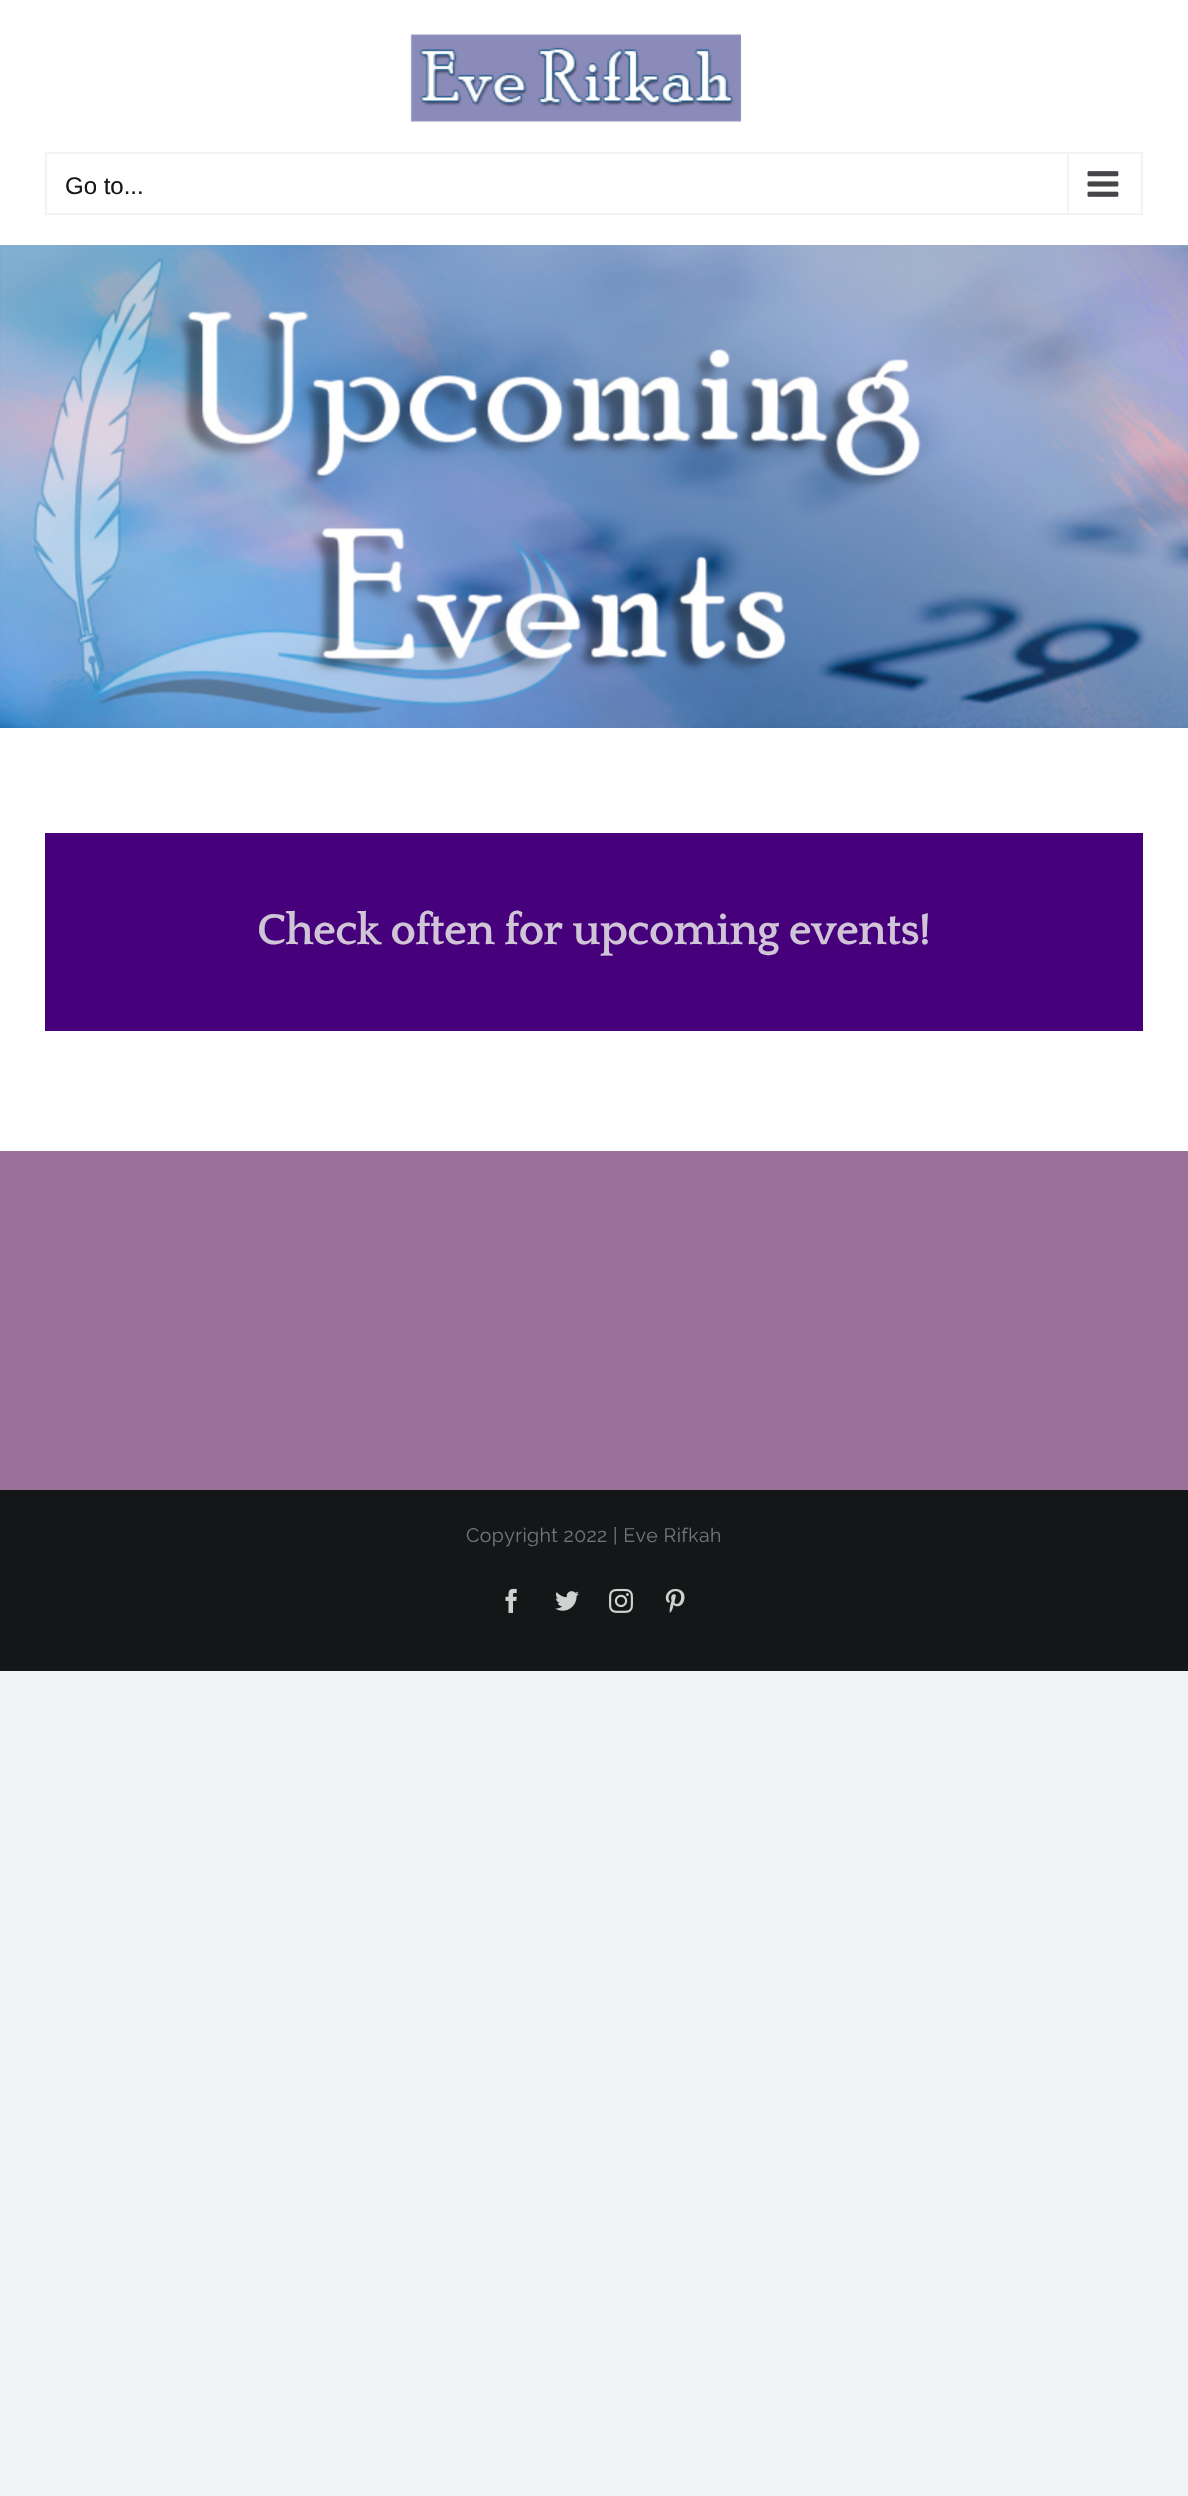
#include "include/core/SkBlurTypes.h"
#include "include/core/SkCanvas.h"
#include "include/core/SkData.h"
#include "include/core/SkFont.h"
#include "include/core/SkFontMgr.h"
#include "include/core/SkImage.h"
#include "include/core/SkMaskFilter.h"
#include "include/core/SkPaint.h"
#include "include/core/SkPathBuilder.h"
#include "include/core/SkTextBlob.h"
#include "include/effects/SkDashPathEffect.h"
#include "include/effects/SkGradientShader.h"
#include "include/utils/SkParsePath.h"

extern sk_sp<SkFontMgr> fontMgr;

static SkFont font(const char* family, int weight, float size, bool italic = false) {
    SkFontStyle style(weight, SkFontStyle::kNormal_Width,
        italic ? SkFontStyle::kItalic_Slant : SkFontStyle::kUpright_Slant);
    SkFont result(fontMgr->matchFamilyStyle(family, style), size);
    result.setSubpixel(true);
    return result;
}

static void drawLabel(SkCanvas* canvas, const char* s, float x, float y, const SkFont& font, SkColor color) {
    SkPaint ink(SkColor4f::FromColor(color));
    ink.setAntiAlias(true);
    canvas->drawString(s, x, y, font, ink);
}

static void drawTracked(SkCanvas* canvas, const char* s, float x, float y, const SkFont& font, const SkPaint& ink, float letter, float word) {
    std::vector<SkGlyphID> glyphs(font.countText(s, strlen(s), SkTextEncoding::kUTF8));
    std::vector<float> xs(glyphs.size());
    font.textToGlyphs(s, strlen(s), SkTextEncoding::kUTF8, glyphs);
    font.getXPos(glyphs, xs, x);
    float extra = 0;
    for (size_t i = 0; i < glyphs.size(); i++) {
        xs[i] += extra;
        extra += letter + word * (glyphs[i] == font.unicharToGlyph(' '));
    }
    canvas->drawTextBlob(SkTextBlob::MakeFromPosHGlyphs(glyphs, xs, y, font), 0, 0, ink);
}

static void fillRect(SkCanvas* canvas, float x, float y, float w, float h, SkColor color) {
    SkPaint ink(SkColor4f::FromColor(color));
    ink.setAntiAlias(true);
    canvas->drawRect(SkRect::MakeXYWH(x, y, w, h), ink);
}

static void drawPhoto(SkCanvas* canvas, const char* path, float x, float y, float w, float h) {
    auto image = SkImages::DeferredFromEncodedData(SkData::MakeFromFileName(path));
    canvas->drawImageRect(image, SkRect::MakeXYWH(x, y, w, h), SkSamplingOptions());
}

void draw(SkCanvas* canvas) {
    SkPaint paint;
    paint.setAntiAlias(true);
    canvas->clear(0xFFF2F3F5);
    fillRect(canvas, 0, 0, 1188, 1151, 0xFFFFFFFF);
    drawPhoto(canvas, "assets/img1.png", 410, 34, 331, 88);
    paint.setStroke(true);
    paint.setStrokeWidth(2);
    paint.setColor(0xFFF2F3F5);
    canvas->drawRect(SkRect::MakeXYWH(46, 153, 1096, 61), paint);
    SkFont font1 = font("Liberation Sans", 400, 24);
    drawLabel(canvas, "Go to...", 65, 194, font1, 0xFF141617);
    fillRect(canvas, 1067, 153, 2, 60, 0xFFF2F3F5);
    drawPhoto(canvas, "assets/img2.png", 1087, 171, 32, 26);
    drawPhoto(canvas, "assets/img3.png", 0, 245, 1188, 483);
    fillRect(canvas, 45, 833, 1098, 198, 0xFF46007C);
    SkFont font2 = font("Quattrocento", 700, 45);
    paint.setStroke(false);
    paint.setColor(0xFFD0C5D6);
    drawTracked(canvas, "Check often for upcoming events!", 257, 944, font2, paint, -0.7f, 0);
    fillRect(canvas, 0, 1151, 1188, 339, 0xFF99719A);
    fillRect(canvas, 0, 1490, 1188, 181, 0xFF141617);
    SkFont font3 = font("Raleway", 400, 19.5f);
    paint.setColor(0xFF727374);
    drawTracked(canvas, "Copyright 2022 | Eve Rifkah", 466, 1542, font3, paint, 0.4f, 0);
    drawPhoto(canvas, "assets/img4.png", 505, 1588, 12, 25);
    drawPhoto(canvas, "assets/img5.png", 555, 1591, 24, 20);
    drawPhoto(canvas, "assets/img6.png", 609, 1588, 24, 25);
    drawPhoto(canvas, "assets/img7.png", 665, 1588, 20, 25);
}
